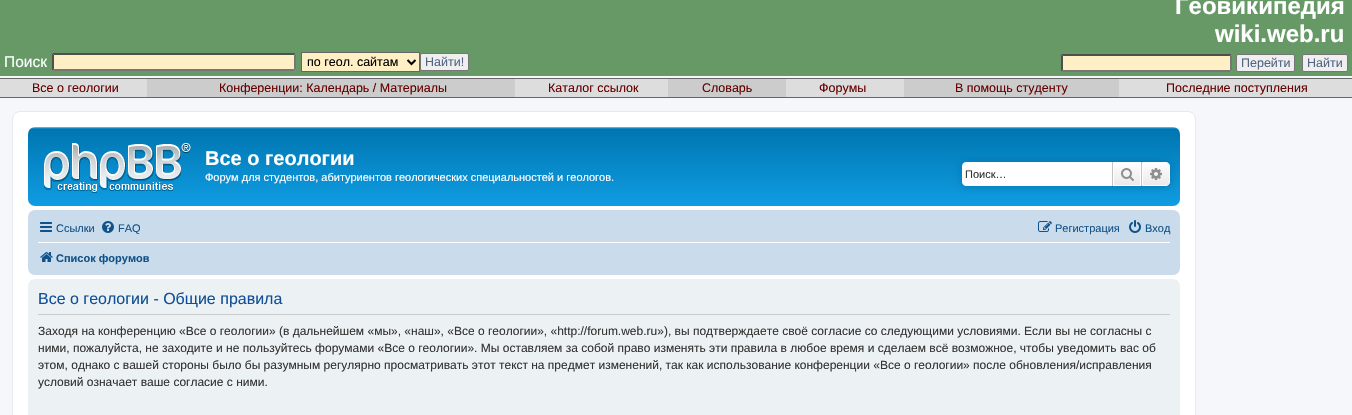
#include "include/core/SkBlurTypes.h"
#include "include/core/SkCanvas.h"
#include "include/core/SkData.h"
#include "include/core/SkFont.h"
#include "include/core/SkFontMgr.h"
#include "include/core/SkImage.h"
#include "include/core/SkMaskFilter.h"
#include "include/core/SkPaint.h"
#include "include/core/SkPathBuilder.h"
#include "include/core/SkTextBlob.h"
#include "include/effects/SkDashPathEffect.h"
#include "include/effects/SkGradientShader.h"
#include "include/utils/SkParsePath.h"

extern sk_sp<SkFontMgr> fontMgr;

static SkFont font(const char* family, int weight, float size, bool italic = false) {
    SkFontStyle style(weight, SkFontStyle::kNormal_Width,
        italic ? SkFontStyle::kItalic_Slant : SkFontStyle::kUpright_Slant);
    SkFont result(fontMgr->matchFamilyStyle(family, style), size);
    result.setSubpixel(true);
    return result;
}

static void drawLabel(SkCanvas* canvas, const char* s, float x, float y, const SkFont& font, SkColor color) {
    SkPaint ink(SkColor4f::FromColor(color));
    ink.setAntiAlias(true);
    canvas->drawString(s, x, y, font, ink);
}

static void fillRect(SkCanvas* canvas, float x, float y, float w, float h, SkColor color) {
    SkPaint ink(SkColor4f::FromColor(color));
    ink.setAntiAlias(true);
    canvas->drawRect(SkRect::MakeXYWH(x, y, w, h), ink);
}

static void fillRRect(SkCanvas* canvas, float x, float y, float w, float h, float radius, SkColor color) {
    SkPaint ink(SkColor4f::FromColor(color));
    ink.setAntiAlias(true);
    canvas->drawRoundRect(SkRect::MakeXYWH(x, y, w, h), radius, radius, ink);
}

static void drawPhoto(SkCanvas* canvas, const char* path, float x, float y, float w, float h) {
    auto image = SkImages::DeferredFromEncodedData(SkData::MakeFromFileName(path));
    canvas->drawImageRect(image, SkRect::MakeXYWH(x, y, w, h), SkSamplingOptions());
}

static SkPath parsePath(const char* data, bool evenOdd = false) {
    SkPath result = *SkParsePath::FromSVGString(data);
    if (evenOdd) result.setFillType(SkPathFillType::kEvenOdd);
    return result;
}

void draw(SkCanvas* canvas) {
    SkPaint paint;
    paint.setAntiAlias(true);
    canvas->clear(0xFFF5F7FA);
    fillRect(canvas, 0, 0, 1352, 76, 0xFF669966);
    SkFont font1 = font("Liberation Sans", 700, 24);
    drawLabel(canvas, "Геовикипедия", 1175, 14, font1, 0xFFFFFFFF);
    drawLabel(canvas, "wiki.web.ru", 1215, 42, font1, 0xFFFFFFFF);
    SkFont font2 = font("Liberation Sans", 400, 15.5f);
    drawLabel(canvas, "Поиск", 4, 67, font2, 0xFFFFFFFF);
    fillRect(canvas, 52, 53, 244, 18, 0xFFFFEFC4);
    paint.setColor(0xFF4F4F4F);
    canvas->drawPath(parsePath("M52 53H296L294 55H54Z"), paint);
    paint.setColor(0xFF767676);
    canvas->drawPath(parsePath("M296 53V71L294 69V55Z"), paint);
    canvas->drawPath(parsePath("M296 71H52L54 69H294Z"), paint);
    paint.setColor(0xFF4F4F4F);
    canvas->drawPath(parsePath("M52 71V53L54 55V69Z"), paint);
    paint.setColor(0xFFFFEFC4);
    canvas->drawRect(SkRect::MakeXYWH(301.5f, 52.5f, 118, 19), paint);
    paint.setStroke(true);
    paint.setStrokeWidth(1);
    paint.setColor(0xFF666666);
    canvas->drawRect(SkRect::MakeXYWH(301.5f, 52.5f, 118, 19), paint);
    paint.setStrokeWidth(2);
    paint.setColor(0xFF000000);
    canvas->drawPath(parsePath("M407.5 60L411.5 64L415.5 60"), paint);
    SkFont font3 = font("Liberation Sans", 400, 12.5f);
    drawLabel(canvas, "по геол. сайтам", 307, 66, font3, 0xFF000000);
    paint.setStroke(false);
    paint.setColor(0xFFEFEFEF);
    canvas->drawRoundRect(SkRect::MakeXYWH(420.5f, 53.5f, 48, 17), 1.5f, 1.5f, paint);
    paint.setStroke(true);
    paint.setStrokeWidth(1);
    paint.setColor(0xFF767676);
    canvas->drawRoundRect(SkRect::MakeXYWH(420.5f, 53.5f, 48, 17), 1.5f, 1.5f, paint);
    drawLabel(canvas, "Найти!", 425, 66, font3, 0xFF536482);
    fillRect(canvas, 1061, 54, 171, 18, 0xFFFFEFC4);
    paint.setStroke(false);
    paint.setColor(0xFF4F4F4F);
    canvas->drawPath(parsePath("M1061 54H1232L1230 56H1063Z"), paint);
    paint.setColor(0xFF767676);
    canvas->drawPath(parsePath("M1232 54V72L1230 70V56Z"), paint);
    canvas->drawPath(parsePath("M1232 72H1061L1063 70H1230Z"), paint);
    paint.setColor(0xFF4F4F4F);
    canvas->drawPath(parsePath("M1061 72V54L1063 56V70Z"), paint);
    paint.setColor(0xFFEFEFEF);
    canvas->drawRoundRect(SkRect::MakeXYWH(1236.5f, 54.5f, 58, 17), 1.5f, 1.5f, paint);
    paint.setStroke(true);
    paint.setColor(0xFF767676);
    canvas->drawRoundRect(SkRect::MakeXYWH(1236.5f, 54.5f, 58, 17), 1.5f, 1.5f, paint);
    drawLabel(canvas, "Перейти", 1241, 67, font3, 0xFF536482);
    paint.setStroke(false);
    paint.setColor(0xFFEFEFEF);
    canvas->drawRoundRect(SkRect::MakeXYWH(1302.5f, 54.5f, 45, 17), 1.5f, 1.5f, paint);
    paint.setStroke(true);
    paint.setColor(0xFF767676);
    canvas->drawRoundRect(SkRect::MakeXYWH(1302.5f, 54.5f, 45, 17), 1.5f, 1.5f, paint);
    drawLabel(canvas, "Найти", 1307, 67, font3, 0xFF536482);
    fillRect(canvas, 147, 79, 972, 18, 0xFFCCCCCC);
    fillRect(canvas, 0, 78, 1352, 1, 0xFF666666);
    fillRect(canvas, 0, 97, 1352, 1, 0xFF666666);
    fillRect(canvas, 0, 79, 147, 18, 0xFFDDDDDD);
    drawLabel(canvas, "Все о геологии", 32, 92, font3, 0xFF660000);
    drawLabel(canvas, "Конференции: Календарь / Материалы", 219, 92, font3, 0xFF660000);
    fillRect(canvas, 515, 79, 153, 18, 0xFFDDDDDD);
    drawLabel(canvas, "Каталог ссылок", 548, 92, font3, 0xFF660000);
    drawLabel(canvas, "Словарь", 702, 92, font3, 0xFF660000);
    fillRect(canvas, 786, 79, 118, 18, 0xFFDDDDDD);
    drawLabel(canvas, "Форумы", 819, 92, font3, 0xFF660000);
    drawLabel(canvas, "В помощь студенту", 955, 92, font3, 0xFF660000);
    fillRect(canvas, 1119, 79, 233, 18, 0xFFDDDDDD);
    drawLabel(canvas, "Последние поступления", 1166, 92, font3, 0xFF660000);
    paint.setStroke(false);
    paint.setColor(0xFFFFFFFF);
    canvas->drawRoundRect(SkRect::MakeXYWH(12.5f, 111.5f, 1183, 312), 7.5f, 7.5f, paint);
    paint.setStroke(true);
    paint.setColor(0xFFE6E9ED);
    canvas->drawRoundRect(SkRect::MakeXYWH(12.5f, 111.5f, 1183, 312), 7.5f, 7.5f, paint);
    paint.setStroke(false);
    {
        const SkColor colors[] = {0xFF6ACEFF, 0xFF0076B1, 0xFF12A3EB};
        const float stops[] = {0, 0.02f, 1};
        const SkPoint ends[] = {{604, 127}, {604, 219}};
        paint.setShader(SkGradientShader::MakeLinear(ends, colors, stops, 3, SkTileMode::kClamp));
        paint.setAlpha(255);
    }
    canvas->drawRoundRect(SkRect::MakeXYWH(28, 127, 1152, 79), 7, 7, paint);
    drawPhoto(canvas, "assets/img1.png", 44, 143, 147, 50);
    SkFont font4 = font("Liberation Sans", 700, 20);
    drawLabel(canvas, "Все о геологии", 205, 165, font4, 0xFFFFFFFF);
    SkFont font5 = font("Liberation Sans", 400, 11);
    drawLabel(canvas, "Форум для студентов, абитуриентов геологических специальностей и геологов.", 205, 181, font5, 0xFFFFFFFF);
    paint.setShader(nullptr);
    paint.setColor(0xFF0075B0);
    paint.setMaskFilter(SkMaskFilter::MakeBlur(kNormal_SkBlurStyle, 5));
    canvas->drawRoundRect(SkRect::MakeXYWH(962, 162, 208, 24), 4, 4, paint);
    paint.setMaskFilter(nullptr);
    paint.setColor(0xFFFFFFFF);
    canvas->drawPath(parsePath("M966 162H1112V186H966C964 186 962 184 962 182V166C962 164 964 162 966 162Z"), paint);
    drawLabel(canvas, "Поиск…", 965, 178, font5, 0xFF333333);
    {
        const SkColor colors[] = {0xFFFFFFFF, 0xFFE9E9E9};
        const float stops[] = {0, 1};
        const SkPoint ends[] = {{1127, 162}, {1127, 186}};
        paint.setShader(SkGradientShader::MakeLinear(ends, colors, stops, 2, SkTileMode::kClamp));
        paint.setAlpha(255);
    }
    canvas->drawRect(SkRect::MakeXYWH(1114, 163, 26, 22), paint);
    paint.setStroke(true);
    paint.setShader(nullptr);
    paint.setColor(0xFFFFFFFF);
    canvas->drawRect(SkRect::MakeXYWH(1113.5f, 162.5f, 27, 23), paint);
    fillRect(canvas, 1141, 162, 1, 24, 0xFFC7C3BF);
    fillRect(canvas, 1112, 162, 1, 24, 0xFFC7C3BF);
    drawPhoto(canvas, "assets/img2.png", 1121, 168, 13, 13);
    paint.setStroke(false);
    {
        const SkColor colors[] = {0xFFFFFFFF, 0xFFE9E9E9};
        const float stops[] = {0, 1};
        const SkPoint ends[] = {{1156, 162}, {1156, 186}};
        paint.setShader(SkGradientShader::MakeLinear(ends, colors, stops, 2, SkTileMode::kClamp));
        paint.setAlpha(255);
    }
    canvas->drawPath(parsePath("M1142.5 162.5H1166C1168 162.5 1169.5 164 1169.5 166V182C1169.5 184 1168 185.5 1166 185.5H1142.5Z"), paint);
    paint.setStroke(true);
    paint.setShader(nullptr);
    paint.setColor(0xFFFFFFFF);
    canvas->drawPath(parsePath("M1142.5 162.5H1166C1168 162.5 1169.5 164 1169.5 166V182C1169.5 184 1168 185.5 1166 185.5H1142.5Z"), paint);
    drawPhoto(canvas, "assets/img3.png", 1150, 168, 12, 12);
    fillRRect(canvas, 28, 210, 1152, 65, 7, 0xFFCADCEB);
    drawPhoto(canvas, "assets/img4.png", 40, 222, 12, 10);
    drawLabel(canvas, "Ссылки", 56, 232, font5, 0xFF105289);
    drawPhoto(canvas, "assets/img5.png", 102, 221, 12, 12);
    drawLabel(canvas, "FAQ", 118, 232, font5, 0xFF105289);
    drawPhoto(canvas, "assets/img6.png", 1038, 221, 14, 11);
    drawLabel(canvas, "Регистрация", 1055, 232, font5, 0xFF105289);
    drawPhoto(canvas, "assets/img7.png", 1129, 220, 12, 13);
    drawLabel(canvas, "Вход", 1145, 232, font5, 0xFF105289);
    fillRect(canvas, 38, 242, 1132, 1, 0xFFFFFFFF);
    drawPhoto(canvas, "assets/img8.png", 40, 252, 13, 10);
    SkFont font6 = font("Liberation Sans", 700, 11);
    drawLabel(canvas, "Список форумов", 56, 262, font6, 0xFF105289);
    fillRRect(canvas, 28, 279, 1152, 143, 7, 0xFFECF1F3);
    fillRect(canvas, 38, 314, 1132, 1, 0xFFCCCCCC);
    SkFont font7 = font("Liberation Sans", 400, 16);
    drawLabel(canvas, "Все о геологии - Общие правила", 38, 304, font7, 0xFF115098);
    SkFont font8 = font("Liberation Sans", 400, 12);
    drawLabel(canvas, "Заходя на конференцию «Все о геологии» (в дальнейшем «мы», «наш», «Все о геологии», «http://forum.web.ru»), вы подтверждаете своё согласие со следующими условиями. Если вы не согласны с", 38, 335, font8, 0xFF333333);
    drawLabel(canvas, "ними, пожалуйста, не заходите и не пользуйтесь форумами «Все о геологии». Мы оставляем за собой право изменять эти правила в любое время и сделаем всё возможное, чтобы уведомить вас об", 38, 352, font8, 0xFF333333);
    drawLabel(canvas, "этом, однако с вашей стороны было бы разумным регулярно просматривать этот текст на предмет изменений, так как использование конференции «Все о геологии» после обновления/исправления", 38, 369, font8, 0xFF333333);
    drawLabel(canvas, "условий означает ваше согласие с ними.", 38, 386, font8, 0xFF333333);
}
